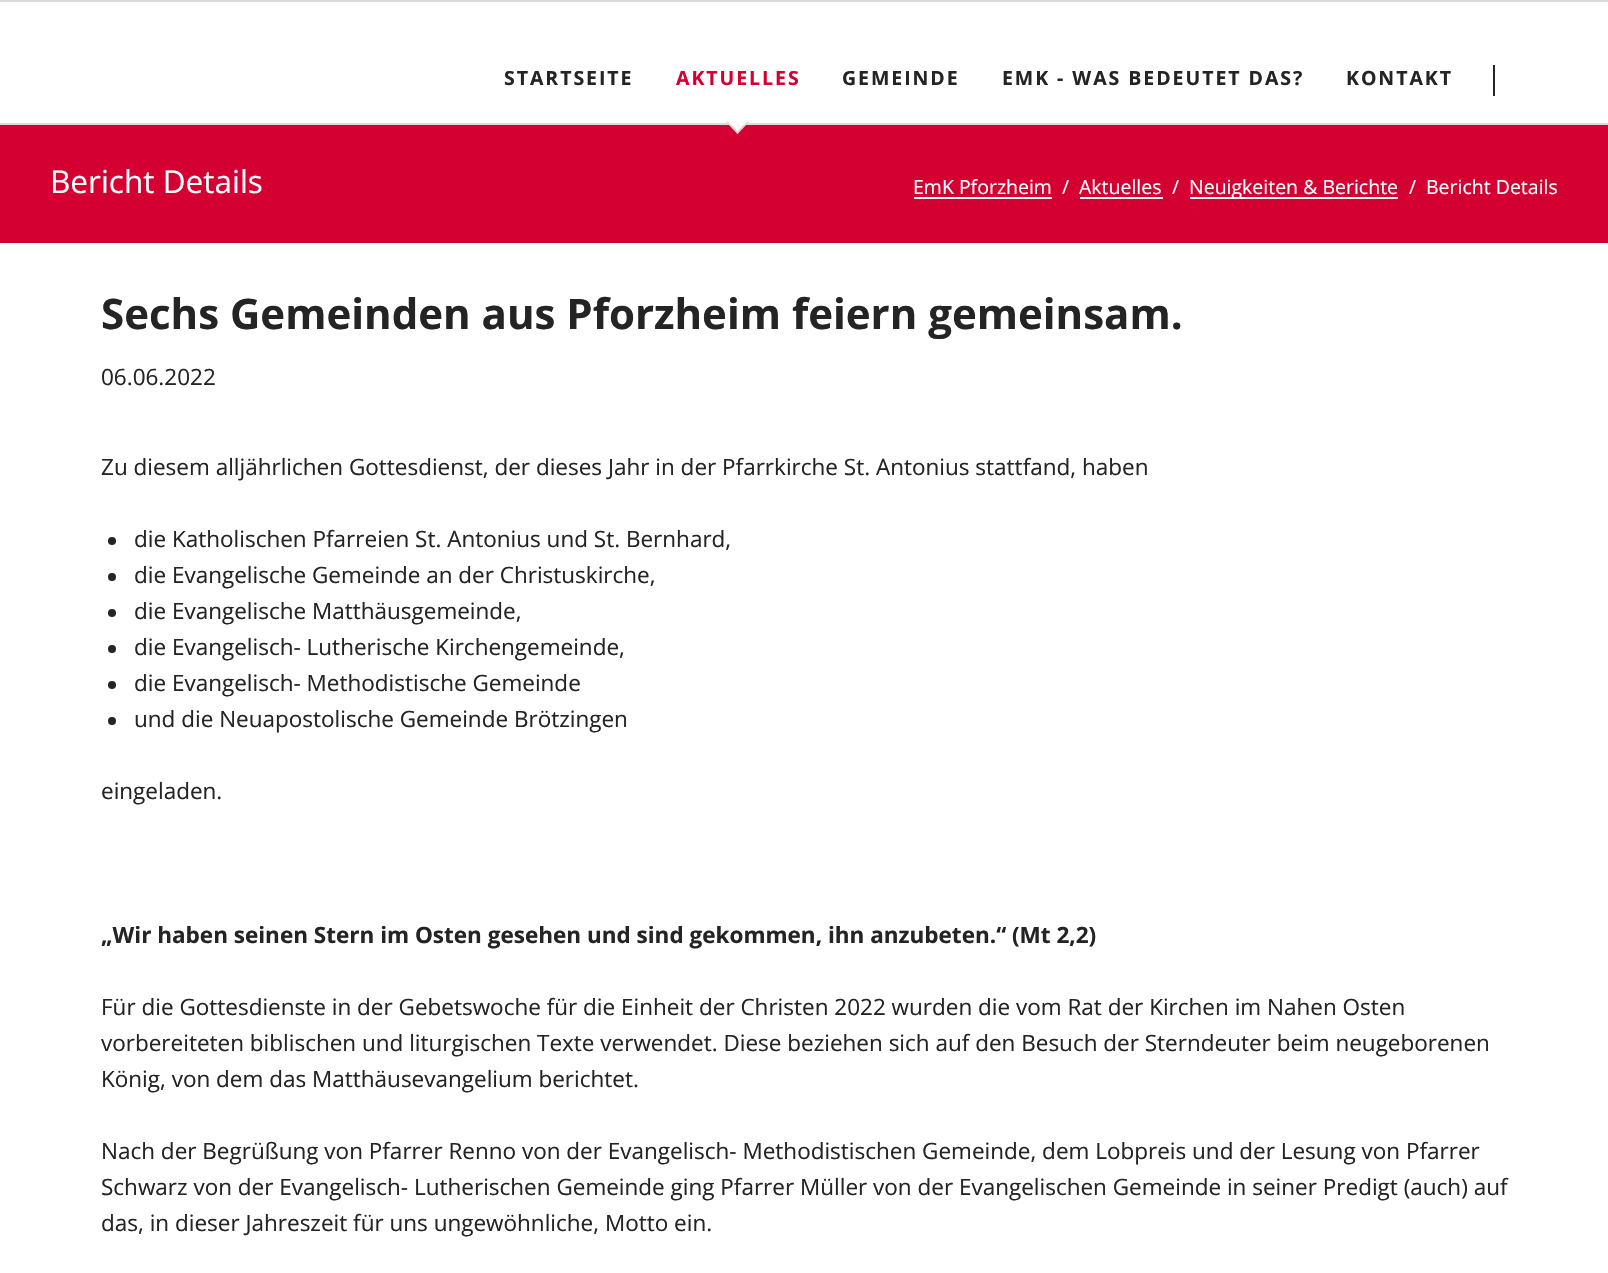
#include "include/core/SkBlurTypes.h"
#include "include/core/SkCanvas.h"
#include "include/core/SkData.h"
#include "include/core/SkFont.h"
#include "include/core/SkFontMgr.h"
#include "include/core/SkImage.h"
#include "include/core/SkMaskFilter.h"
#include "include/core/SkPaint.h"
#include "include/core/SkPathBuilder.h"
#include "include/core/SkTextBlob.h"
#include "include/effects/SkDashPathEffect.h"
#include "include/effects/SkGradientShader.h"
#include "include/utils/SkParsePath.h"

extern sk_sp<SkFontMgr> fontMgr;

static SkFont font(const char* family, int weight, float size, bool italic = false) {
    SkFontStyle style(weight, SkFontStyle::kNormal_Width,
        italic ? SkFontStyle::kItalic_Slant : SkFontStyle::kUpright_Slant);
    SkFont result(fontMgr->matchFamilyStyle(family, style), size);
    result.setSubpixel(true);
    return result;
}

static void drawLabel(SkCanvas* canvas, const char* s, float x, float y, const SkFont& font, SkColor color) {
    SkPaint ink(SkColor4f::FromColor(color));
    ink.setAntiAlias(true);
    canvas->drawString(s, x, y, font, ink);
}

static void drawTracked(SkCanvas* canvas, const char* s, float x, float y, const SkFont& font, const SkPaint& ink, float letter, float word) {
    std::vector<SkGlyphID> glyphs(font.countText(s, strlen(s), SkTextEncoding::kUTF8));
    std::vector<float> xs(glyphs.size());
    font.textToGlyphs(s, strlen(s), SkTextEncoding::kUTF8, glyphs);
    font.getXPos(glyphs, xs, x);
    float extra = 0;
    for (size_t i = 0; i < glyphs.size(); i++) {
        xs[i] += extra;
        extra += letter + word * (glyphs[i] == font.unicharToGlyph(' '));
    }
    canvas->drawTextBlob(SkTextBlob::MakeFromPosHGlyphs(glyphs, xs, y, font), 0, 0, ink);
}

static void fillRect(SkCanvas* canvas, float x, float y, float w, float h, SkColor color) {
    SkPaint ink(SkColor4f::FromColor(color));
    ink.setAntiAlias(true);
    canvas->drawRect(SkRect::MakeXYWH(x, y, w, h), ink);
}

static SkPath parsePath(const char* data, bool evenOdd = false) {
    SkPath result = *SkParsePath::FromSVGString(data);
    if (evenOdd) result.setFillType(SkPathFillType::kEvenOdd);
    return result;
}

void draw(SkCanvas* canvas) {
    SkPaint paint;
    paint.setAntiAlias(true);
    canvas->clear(0xFFFFFFFF);
    fillRect(canvas, 0, 0, 1608, 2, 0xFFDCDCDC);
    fillRect(canvas, 0, 123, 1608, 2, 0xFFDCDCDC);
    SkFont font1 = font("Open Sans", 700, 19.5f);
    paint.setColor(0xFF242424);
    drawTracked(canvas, "STARTSEITE", 504, 85, font1, paint, 1.95f, 0);
    paint.setColor(0xFFD40032);
    drawTracked(canvas, "AKTUELLES", 676, 85, font1, paint, 1.95f, 0);
    fillRect(canvas, 0, 125, 1608, 118, 0xFFD40032);
    paint.setColor(0xFFFFFFFF);
    canvas->drawPath(parsePath("M737.5 110.5L748 121L737.5 132L727 121Z"), paint);
    paint.setColor(0xFFDCDCDC);
    canvas->drawPath(parsePath("M748 121L749 122L737.5 134L736.5 133Z"), paint);
    canvas->drawPath(parsePath("M727 121L738.5 133L737.5 134L726 122Z"), paint);
    paint.setColor(0xFF242424);
    drawTracked(canvas, "GEMEINDE", 842, 85, font1, paint, 1.95f, 0);
    drawTracked(canvas, "EMK - WAS BEDEUTET DAS?", 1002, 85, font1, paint, 1.95f, 0);
    drawTracked(canvas, "KONTAKT", 1346, 85, font1, paint, 1.95f, 0);
    fillRect(canvas, 1493, 65, 2, 31, 0xFF242424);
    SkFont font2 = font("Open Sans", 400, 31.5f);
    drawLabel(canvas, "Bericht Details", 50, 193, font2, 0xFFFFFFFF);
    SkFont font3 = font("Open Sans", 400, 19.5f);
    drawLabel(canvas, "EmK Pforzheim", 913, 194, font3, 0xFFFFFFFF);
    fillRect(canvas, 914, 197, 138, 2, 0xFFFFFFFF);
    drawLabel(canvas, "/", 1062, 194, font3, 0xFFFFFFFF);
    drawLabel(canvas, "Aktuelles", 1079, 194, font3, 0xFFFFFFFF);
    fillRect(canvas, 1080, 197, 83, 2, 0xFFFFFFFF);
    drawLabel(canvas, "/", 1172, 194, font3, 0xFFFFFFFF);
    fillRect(canvas, 1190, 197, 208, 2, 0xFFFFFFFF);
    drawLabel(canvas, "Neuigkeiten & Berichte", 1189, 194, font3, 0xFFFFFFFF);
    drawLabel(canvas, "/", 1409, 194, font3, 0xFFFFFFFF);
    drawLabel(canvas, "Bericht Details", 1426, 194, font3, 0xFFFFFFFF);
    SkFont font4 = font("Open Sans", 700, 42);
    drawLabel(canvas, "Sechs Gemeinden aus Pforzheim feiern gemeinsam.", 101, 329, font4, 0xFF242424);
    SkFont font5 = font("Open Sans", 400, 22.5f);
    drawLabel(canvas, "06.06.2022", 101, 385, font5, 0xFF242424);
    drawLabel(canvas, "Zu diesem alljährlichen Gottesdienst, der dieses Jahr in der Pfarrkirche St. Antonius stattfand, haben", 101, 475, font5, 0xFF242424);
    canvas->drawCircle(112, 541, 4, paint);
    drawLabel(canvas, "die Katholischen Pfarreien St. Antonius und St. Bernhard,", 134, 547, font5, 0xFF242424);
    canvas->drawCircle(112, 577, 4, paint);
    drawLabel(canvas, "die Evangelische Gemeinde an der Christuskirche,", 134, 583, font5, 0xFF242424);
    canvas->drawCircle(112, 613, 4, paint);
    drawLabel(canvas, "die Evangelische Matthäusgemeinde,", 134, 619, font5, 0xFF242424);
    canvas->drawCircle(112, 649, 4, paint);
    drawLabel(canvas, "die Evangelisch- Lutherische Kirchengemeinde,", 134, 655, font5, 0xFF242424);
    canvas->drawCircle(112, 685, 4, paint);
    drawLabel(canvas, "die Evangelisch- Methodistische Gemeinde", 134, 691, font5, 0xFF242424);
    canvas->drawCircle(112, 721, 4, paint);
    drawLabel(canvas, "und die Neuapostolische Gemeinde Brötzingen", 134, 727, font5, 0xFF242424);
    drawLabel(canvas, "eingeladen.", 101, 799, font5, 0xFF242424);
    SkFont font6 = font("Open Sans", 700, 22.5f);
    drawLabel(canvas, "„Wir haben seinen Stern im Osten gesehen und sind gekommen, ihn anzubeten.“ (Mt 2,2)", 101, 943, font6, 0xFF242424);
    drawLabel(canvas, "Für die Gottesdienste in der Gebetswoche für die Einheit der Christen 2022 wurden die vom Rat der Kirchen im Nahen Osten", 101, 1015, font5, 0xFF242424);
    drawLabel(canvas, "vorbereiteten biblischen und liturgischen Texte verwendet. Diese beziehen sich auf den Besuch der Sterndeuter beim neugeborenen", 101, 1051, font5, 0xFF242424);
    drawLabel(canvas, "König, von dem das Matthäusevangelium berichtet.", 101, 1087, font5, 0xFF242424);
    drawLabel(canvas, "Nach der Begrüßung von Pfarrer Renno von der Evangelisch- Methodistischen Gemeinde, dem Lobpreis und der Lesung von Pfarrer", 101, 1159, font5, 0xFF242424);
    drawLabel(canvas, "Schwarz von der Evangelisch- Lutherischen Gemeinde ging Pfarrer Müller von der Evangelischen Gemeinde in seiner Predigt (auch) auf", 101, 1195, font5, 0xFF242424);
    drawLabel(canvas, "das, in dieser Jahreszeit für uns ungewöhnliche, Motto ein.", 101, 1231, font5, 0xFF242424);
}
